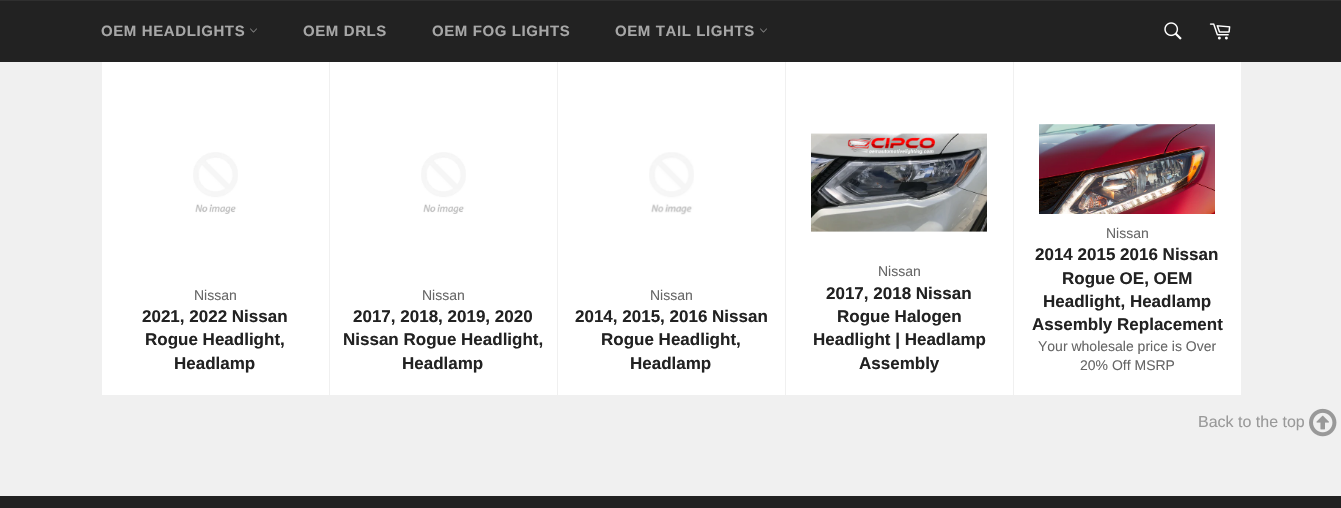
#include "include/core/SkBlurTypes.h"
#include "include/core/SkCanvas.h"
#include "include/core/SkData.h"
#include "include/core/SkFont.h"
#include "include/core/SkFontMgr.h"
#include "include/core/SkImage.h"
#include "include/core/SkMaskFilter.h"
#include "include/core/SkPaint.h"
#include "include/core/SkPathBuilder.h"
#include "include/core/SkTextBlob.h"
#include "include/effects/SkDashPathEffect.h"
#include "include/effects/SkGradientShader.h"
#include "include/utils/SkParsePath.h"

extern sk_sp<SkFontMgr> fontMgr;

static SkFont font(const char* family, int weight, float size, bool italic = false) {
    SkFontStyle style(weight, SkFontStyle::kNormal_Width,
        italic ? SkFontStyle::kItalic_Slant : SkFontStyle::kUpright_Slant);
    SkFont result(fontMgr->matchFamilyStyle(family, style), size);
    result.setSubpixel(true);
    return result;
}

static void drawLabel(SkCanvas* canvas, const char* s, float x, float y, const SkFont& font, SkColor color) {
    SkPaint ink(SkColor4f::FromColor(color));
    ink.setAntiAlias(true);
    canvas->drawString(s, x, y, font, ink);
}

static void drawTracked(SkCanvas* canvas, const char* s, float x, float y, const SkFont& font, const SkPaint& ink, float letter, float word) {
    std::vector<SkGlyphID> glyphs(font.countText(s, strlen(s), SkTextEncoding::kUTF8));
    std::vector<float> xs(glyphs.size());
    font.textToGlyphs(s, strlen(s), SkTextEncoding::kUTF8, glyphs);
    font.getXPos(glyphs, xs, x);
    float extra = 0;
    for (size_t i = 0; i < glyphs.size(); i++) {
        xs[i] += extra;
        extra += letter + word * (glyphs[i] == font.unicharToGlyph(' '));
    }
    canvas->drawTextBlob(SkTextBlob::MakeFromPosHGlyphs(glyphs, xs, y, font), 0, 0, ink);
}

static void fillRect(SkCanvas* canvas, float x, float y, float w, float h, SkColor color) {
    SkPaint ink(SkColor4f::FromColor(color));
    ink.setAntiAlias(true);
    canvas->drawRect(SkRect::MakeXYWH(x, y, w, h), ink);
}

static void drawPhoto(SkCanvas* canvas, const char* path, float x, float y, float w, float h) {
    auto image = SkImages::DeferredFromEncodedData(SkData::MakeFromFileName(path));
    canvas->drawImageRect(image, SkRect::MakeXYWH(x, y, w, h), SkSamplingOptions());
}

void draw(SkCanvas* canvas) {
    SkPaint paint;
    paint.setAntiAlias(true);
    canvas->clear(0xFFF0F0F0);
    fillRect(canvas, 0, 1, 1341, 61, 0xFF222222);
    fillRect(canvas, 0, 0, 1341, 1, 0xFF2F2F2F);
    SkFont font1 = font("Liberation Sans", 700, 15);
    paint.setColor(0xFFA7A7A7);
    drawTracked(canvas, "OEM HEADLIGHTS", 101, 36, font1, paint, 0.6f, 0);
    drawPhoto(canvas, "assets/img1.png", 250, 28, 7, 5);
    drawTracked(canvas, "OEM DRLS", 303, 36, font1, paint, 0.6f, 0);
    drawTracked(canvas, "OEM FOG LIGHTS", 432, 36, font1, paint, 0.6f, 0);
    drawTracked(canvas, "OEM TAIL LIGHTS", 615, 36, font1, paint, 0.6f, 0);
    drawPhoto(canvas, "assets/img1.png", 760, 28, 7, 5);
    drawPhoto(canvas, "assets/img2.png", 1164, 22, 18, 18);
    drawPhoto(canvas, "assets/img3.png", 1209, 23, 22, 17);
    fillRect(canvas, 102, 62, 227, 333, 0xFFFFFFFF);
    drawPhoto(canvas, "assets/img4.png", 193, 152, 45, 62);
    SkFont font2 = font("Liberation Sans", 400, 14);
    drawLabel(canvas, "Nissan", 194, 300, font2, 0xFF666666);
    SkFont font3 = font("Liberation Sans", 700, 17);
    drawLabel(canvas, "2021, 2022 Nissan", 142, 322, font3, 0xFF222222);
    drawLabel(canvas, "Rogue Headlight,", 145, 345, font3, 0xFF222222);
    drawLabel(canvas, "Headlamp", 174, 369, font3, 0xFF222222);
    fillRect(canvas, 330, 62, 227, 333, 0xFFFFFFFF);
    drawPhoto(canvas, "assets/img4.png", 421, 152, 45, 62);
    drawLabel(canvas, "Nissan", 422, 300, font2, 0xFF666666);
    drawLabel(canvas, "2017, 2018, 2019, 2020", 353, 322, font3, 0xFF222222);
    drawLabel(canvas, "Nissan Rogue Headlight,", 343, 345, font3, 0xFF222222);
    drawLabel(canvas, "Headlamp", 402, 369, font3, 0xFF222222);
    fillRect(canvas, 558, 62, 227, 333, 0xFFFFFFFF);
    drawPhoto(canvas, "assets/img5.png", 649, 152, 45, 63);
    drawLabel(canvas, "Nissan", 650, 300, font2, 0xFF666666);
    drawLabel(canvas, "2014, 2015, 2016 Nissan", 575, 322, font3, 0xFF222222);
    drawLabel(canvas, "Rogue Headlight,", 601, 345, font3, 0xFF222222);
    drawLabel(canvas, "Headlamp", 630, 369, font3, 0xFF222222);
    fillRect(canvas, 786, 62, 227, 333, 0xFFFFFFFF);
    drawPhoto(canvas, "assets/img6.png", 811, 133, 176, 99);
    drawLabel(canvas, "Nissan", 878, 276, font2, 0xFF666666);
    drawLabel(canvas, "2017, 2018 Nissan", 826, 299, font3, 0xFF222222);
    drawLabel(canvas, "Rogue Halogen", 837, 322, font3, 0xFF222222);
    drawLabel(canvas, "Headlight | Headlamp", 813, 345, font3, 0xFF222222);
    drawLabel(canvas, "Assembly", 859, 369, font3, 0xFF222222);
    fillRect(canvas, 1014, 62, 227, 333, 0xFFFFFFFF);
    drawPhoto(canvas, "assets/img7.png", 1039, 124, 176, 90);
    drawLabel(canvas, "Nissan", 1106, 238, font2, 0xFF666666);
    drawLabel(canvas, "2014 2015 2016 Nissan", 1035, 260, font3, 0xFF222222);
    drawLabel(canvas, "Rogue OE, OEM", 1062, 284, font3, 0xFF222222);
    drawLabel(canvas, "Headlight, Headlamp", 1043, 307, font3, 0xFF222222);
    drawLabel(canvas, "Assembly Replacement", 1032, 330, font3, 0xFF222222);
    drawLabel(canvas, "Your wholesale price is Over", 1038, 351, font2, 0xFF666666);
    drawLabel(canvas, "20% Off MSRP", 1080, 370, font2, 0xFF666666);
    fillRect(canvas, 0, 496, 1341, 12, 0xFF222222);
    SkFont font4 = font("Liberation Sans", 400, 16);
    drawLabel(canvas, "Back to the top", 1198, 427, font4, 0xFF999999);
    drawPhoto(canvas, "assets/img8.png", 1309, 408, 28, 29);
}
